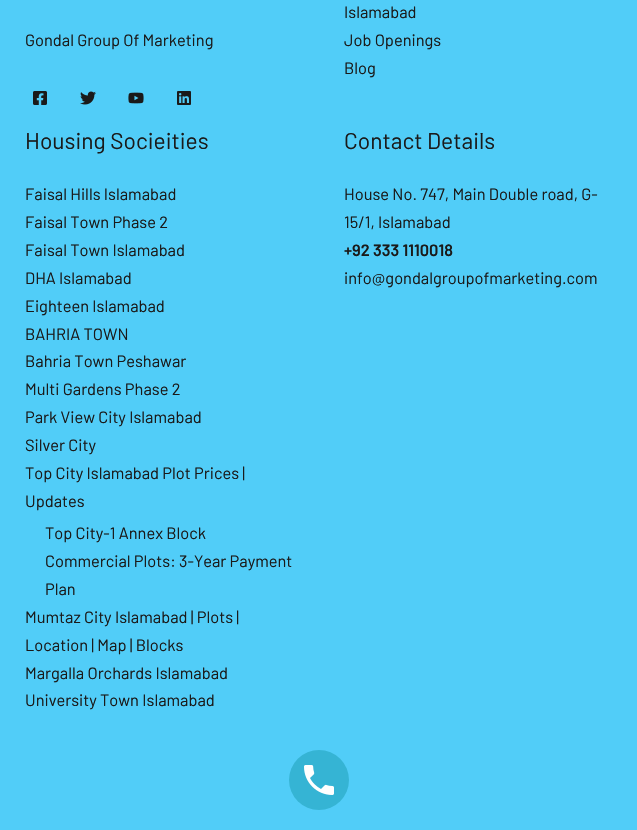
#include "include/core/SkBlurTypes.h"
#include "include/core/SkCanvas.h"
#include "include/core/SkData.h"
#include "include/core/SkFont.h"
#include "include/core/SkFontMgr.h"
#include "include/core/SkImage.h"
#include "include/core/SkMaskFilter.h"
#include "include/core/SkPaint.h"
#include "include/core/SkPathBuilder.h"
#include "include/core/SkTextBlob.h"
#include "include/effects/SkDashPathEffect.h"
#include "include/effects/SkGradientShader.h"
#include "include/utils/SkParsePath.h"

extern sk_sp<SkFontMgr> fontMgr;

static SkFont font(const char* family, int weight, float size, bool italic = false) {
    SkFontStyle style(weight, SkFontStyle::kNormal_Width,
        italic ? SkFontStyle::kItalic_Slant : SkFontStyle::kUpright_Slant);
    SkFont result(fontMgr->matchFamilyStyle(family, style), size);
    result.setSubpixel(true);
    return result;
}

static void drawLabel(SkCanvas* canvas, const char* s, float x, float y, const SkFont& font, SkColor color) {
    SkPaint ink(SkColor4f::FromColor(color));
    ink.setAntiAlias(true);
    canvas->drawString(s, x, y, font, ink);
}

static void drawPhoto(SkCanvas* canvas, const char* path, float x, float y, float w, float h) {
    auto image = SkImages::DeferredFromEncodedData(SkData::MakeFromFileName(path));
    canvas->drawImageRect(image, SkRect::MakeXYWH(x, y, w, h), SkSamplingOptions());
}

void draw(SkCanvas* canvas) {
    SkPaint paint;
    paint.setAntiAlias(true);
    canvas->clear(0xFF51CDF8);
    SkFont font1 = font("Barlow", 400, 16.4f);
    drawLabel(canvas, "Gondal Group Of Marketing", 25, 46, font1, 0xFF1A1A1A);
    drawPhoto(canvas, "assets/img1.png", 33, 91, 14, 14);
    drawPhoto(canvas, "assets/img2.png", 80, 91, 16, 14);
    drawPhoto(canvas, "assets/img3.png", 128, 92, 16, 12);
    drawPhoto(canvas, "assets/img4.png", 177, 91, 14, 14);
    drawLabel(canvas, "Islamabad", 344, 18, font1, 0xFF1A1A1A);
    drawLabel(canvas, "Job Openings", 344, 46, font1, 0xFF1A1A1A);
    drawLabel(canvas, "Blog", 344, 74, font1, 0xFF1A1A1A);
    SkFont font2 = font("Barlow", 400, 22.75f);
    drawLabel(canvas, "Housing Socieities", 25, 149, font2, 0xFF1A1A1A);
    drawLabel(canvas, "Faisal Hills Islamabad", 25, 200, font1, 0xFF1A1A1A);
    drawLabel(canvas, "Faisal Town Phase 2", 25, 228, font1, 0xFF1A1A1A);
    drawLabel(canvas, "Faisal Town Islamabad", 25, 256, font1, 0xFF1A1A1A);
    drawLabel(canvas, "DHA Islamabad", 25, 284, font1, 0xFF1A1A1A);
    drawLabel(canvas, "Eighteen Islamabad", 25, 312, font1, 0xFF1A1A1A);
    drawLabel(canvas, "BAHRIA TOWN", 25, 340, font1, 0xFF1A1A1A);
    drawLabel(canvas, "Bahria Town Peshawar", 25, 367, font1, 0xFF1A1A1A);
    drawLabel(canvas, "Multi Gardens Phase 2", 25, 395, font1, 0xFF1A1A1A);
    drawLabel(canvas, "Park View City Islamabad", 25, 423, font1, 0xFF1A1A1A);
    drawLabel(canvas, "Silver City", 25, 451, font1, 0xFF1A1A1A);
    drawLabel(canvas, "Top City Islamabad Plot Prices |", 25, 479, font1, 0xFF1A1A1A);
    drawLabel(canvas, "Updates", 25, 507, font1, 0xFF1A1A1A);
    drawLabel(canvas, "Top City-1 Annex Block", 45, 539, font1, 0xFF1A1A1A);
    drawLabel(canvas, "Commercial Plots: 3-Year Payment", 45, 567, font1, 0xFF1A1A1A);
    drawLabel(canvas, "Plan", 45, 595, font1, 0xFF1A1A1A);
    drawLabel(canvas, "Mumtaz City Islamabad | Plots |", 25, 623, font1, 0xFF1A1A1A);
    drawLabel(canvas, "Location | Map | Blocks", 25, 651, font1, 0xFF1A1A1A);
    drawLabel(canvas, "Margalla Orchards Islamabad", 25, 679, font1, 0xFF1A1A1A);
    drawLabel(canvas, "University Town Islamabad", 25, 706, font1, 0xFF1A1A1A);
    drawLabel(canvas, "Contact Details", 344, 149, font2, 0xFF1A1A1A);
    drawLabel(canvas, "House No. 747, Main Double road, G-", 344, 200, font1, 0xFF1A1A1A);
    drawLabel(canvas, "15/1, Islamabad", 344, 228, font1, 0xFF1A1A1A);
    SkFont font3 = font("Barlow", 600, 16.4f);
    drawLabel(canvas, "+92 333 1110018", 344, 256, font3, 0xFF1A1A1A);
    drawLabel(canvas, "info@gondalgroupofmarketing.com", 344, 284, font1, 0xFF1A1A1A);
    paint.setColor(0xFF35B4D4);
    canvas->drawCircle(319, 780, 30, paint);
    drawPhoto(canvas, "assets/img5.png", 304, 765, 30, 30);
}
